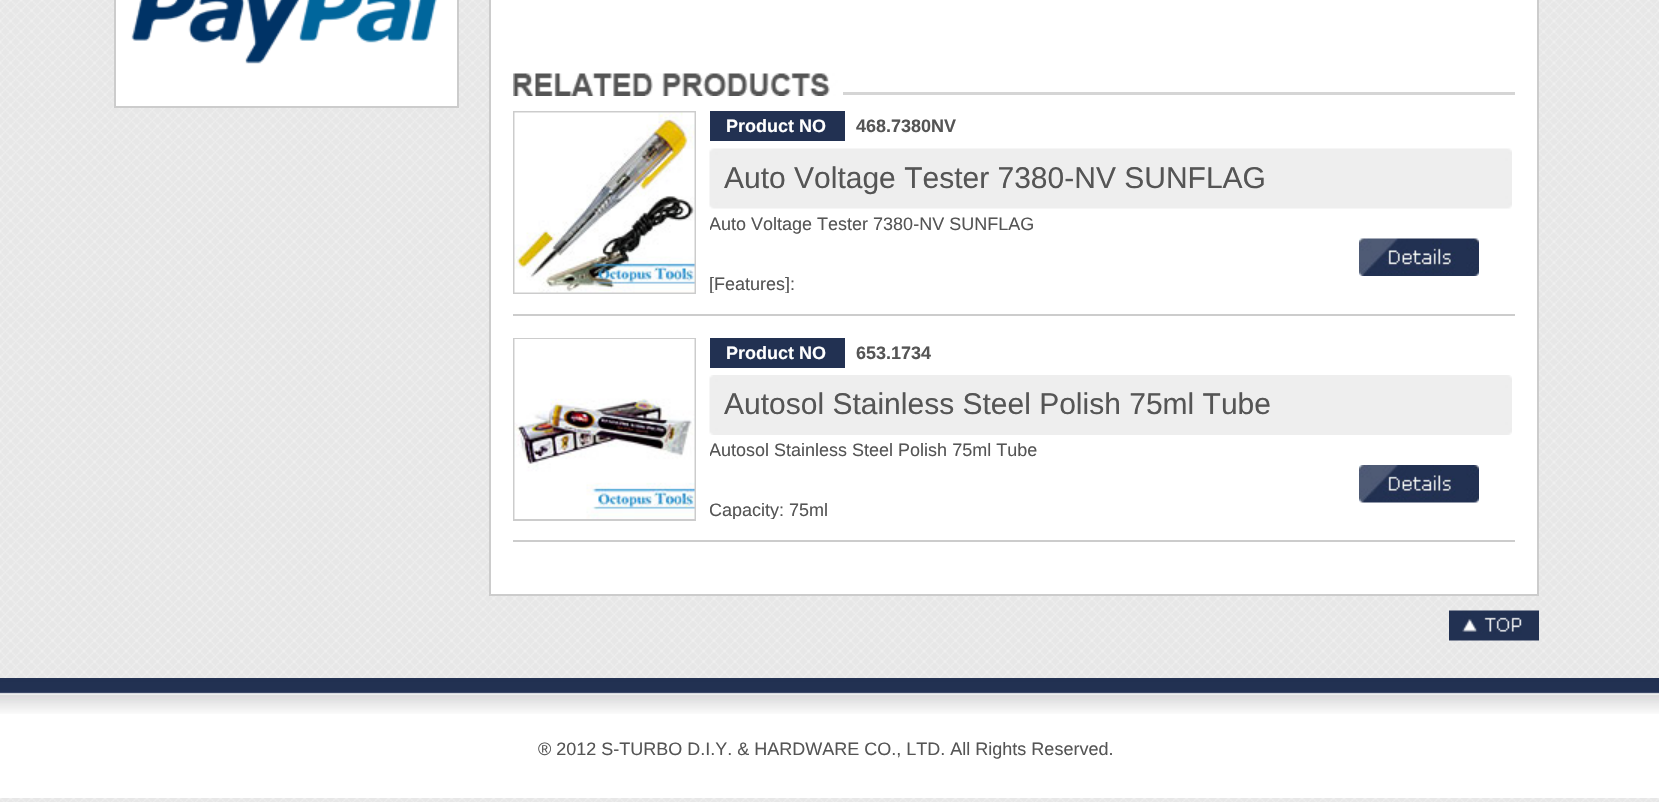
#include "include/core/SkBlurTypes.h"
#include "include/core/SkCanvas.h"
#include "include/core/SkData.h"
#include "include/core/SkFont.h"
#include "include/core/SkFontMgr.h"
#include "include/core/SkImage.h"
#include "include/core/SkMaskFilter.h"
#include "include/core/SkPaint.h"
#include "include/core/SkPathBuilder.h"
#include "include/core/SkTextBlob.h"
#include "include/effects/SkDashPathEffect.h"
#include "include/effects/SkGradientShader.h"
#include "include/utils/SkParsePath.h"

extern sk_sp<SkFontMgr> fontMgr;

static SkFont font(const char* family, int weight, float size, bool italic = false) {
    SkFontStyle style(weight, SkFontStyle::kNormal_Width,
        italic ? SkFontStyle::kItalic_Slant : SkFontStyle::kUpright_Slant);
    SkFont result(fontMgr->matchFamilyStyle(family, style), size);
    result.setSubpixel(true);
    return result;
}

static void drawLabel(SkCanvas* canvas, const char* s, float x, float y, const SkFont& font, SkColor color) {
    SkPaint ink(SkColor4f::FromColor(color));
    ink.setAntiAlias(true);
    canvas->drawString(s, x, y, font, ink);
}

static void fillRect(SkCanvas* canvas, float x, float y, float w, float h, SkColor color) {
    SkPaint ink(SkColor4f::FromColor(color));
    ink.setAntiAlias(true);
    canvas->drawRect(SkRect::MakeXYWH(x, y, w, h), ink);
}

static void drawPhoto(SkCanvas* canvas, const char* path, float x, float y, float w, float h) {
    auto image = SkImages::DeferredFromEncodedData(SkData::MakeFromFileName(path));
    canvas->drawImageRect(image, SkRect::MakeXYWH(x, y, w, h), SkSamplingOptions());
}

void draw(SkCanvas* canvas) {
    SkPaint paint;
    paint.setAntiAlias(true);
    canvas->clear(0xFFFFFFFF);
    drawPhoto(canvas, "assets/img1.png", 0, 0, 1659, 802);
    paint.setColor(0xFFFFFFFF);
    canvas->drawRect(SkRect::MakeXYWH(115, -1, 343, 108), paint);
    paint.setStroke(true);
    paint.setStrokeWidth(2);
    paint.setColor(0xFFCCCCCC);
    canvas->drawRect(SkRect::MakeXYWH(115, -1, 343, 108), paint);
    drawPhoto(canvas, "assets/img2.png", 131, 0, 306, 64);
    paint.setStroke(false);
    paint.setColor(0xFFFFFFFF);
    canvas->drawRect(SkRect::MakeXYWH(490, -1, 1048, 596), paint);
    paint.setStroke(true);
    paint.setColor(0xFFCCCCCC);
    canvas->drawRect(SkRect::MakeXYWH(490, -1, 1048, 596), paint);
    fillRect(canvas, 843, 92, 672, 3, 0xFFD5D5D5);
    drawPhoto(canvas, "assets/img3.png", 513, 73, 330, 23);
    fillRect(canvas, 513, 314, 1002, 2, 0xFFCCCCCC);
    canvas->drawRect(SkRect::MakeXYWH(514, 112, 181, 181), paint);
    drawPhoto(canvas, "assets/img4.png", 514, 112, 181, 181);
    fillRect(canvas, 710, 111, 135, 30, 0xFF223152);
    SkFont font1 = font("Liberation Sans", 700, 18);
    drawLabel(canvas, "Product NO", 726, 132, font1, 0xFFFFFFFF);
    drawLabel(canvas, "468.7380NV", 856, 132, font1, 0xFF555555);
    drawPhoto(canvas, "assets/img5.png", 709, 148, 803, 61);
    SkFont font2 = font("Liberation Sans", 400, 30);
    drawLabel(canvas, "Auto Voltage Tester 7380-NV SUNFLAG", 724, 188, font2, 0xFF555555);
    canvas->save();
    canvas->clipRect(SkRect::MakeXYWH(710, 209, 615, 84));
    SkFont font3 = font("Liberation Sans", 400, 18);
    drawLabel(canvas, "Auto Voltage Tester 7380-NV SUNFLAG", 709, 230, font3, 0xFF555555);
    drawLabel(canvas, "[Features]:", 709, 290, font3, 0xFF555555);
    canvas->restore();
    drawPhoto(canvas, "assets/img6.png", 1359, 238, 120, 38);
    fillRect(canvas, 513, 540, 1002, 2, 0xFFCCCCCC);
    canvas->drawRect(SkRect::MakeXYWH(514, 339, 181, 181), paint);
    drawPhoto(canvas, "assets/img7.png", 514, 339, 181, 180);
    fillRect(canvas, 710, 338, 135, 30, 0xFF223152);
    drawLabel(canvas, "Product NO", 726, 359, font1, 0xFFFFFFFF);
    drawLabel(canvas, "653.1734", 856, 359, font1, 0xFF555555);
    drawPhoto(canvas, "assets/img8.png", 709, 375, 803, 60);
    drawLabel(canvas, "Autosol Stainless Steel Polish 75ml Tube", 724, 414, font2, 0xFF555555);
    canvas->save();
    canvas->clipRect(SkRect::MakeXYWH(710, 435, 615, 84));
    drawLabel(canvas, "Autosol Stainless Steel Polish 75ml Tube", 709, 456, font3, 0xFF555555);
    drawLabel(canvas, "Capacity: 75ml", 709, 516, font3, 0xFF555555);
    canvas->restore();
    drawPhoto(canvas, "assets/img9.png", 1359, 465, 120, 38);
    drawPhoto(canvas, "assets/img10.png", 1449, 610, 90, 31);
    fillRect(canvas, 0, 714, 1659, 84, 0xFFFFFFFF);
    drawPhoto(canvas, "assets/img11.png", 0, 678, 1659, 36);
    drawLabel(canvas, "® 2012 S-TURBO D.I.Y. & HARDWARE CO., LTD. All Rights Reserved.", 538, 755, font3, 0xFF555555);
}
